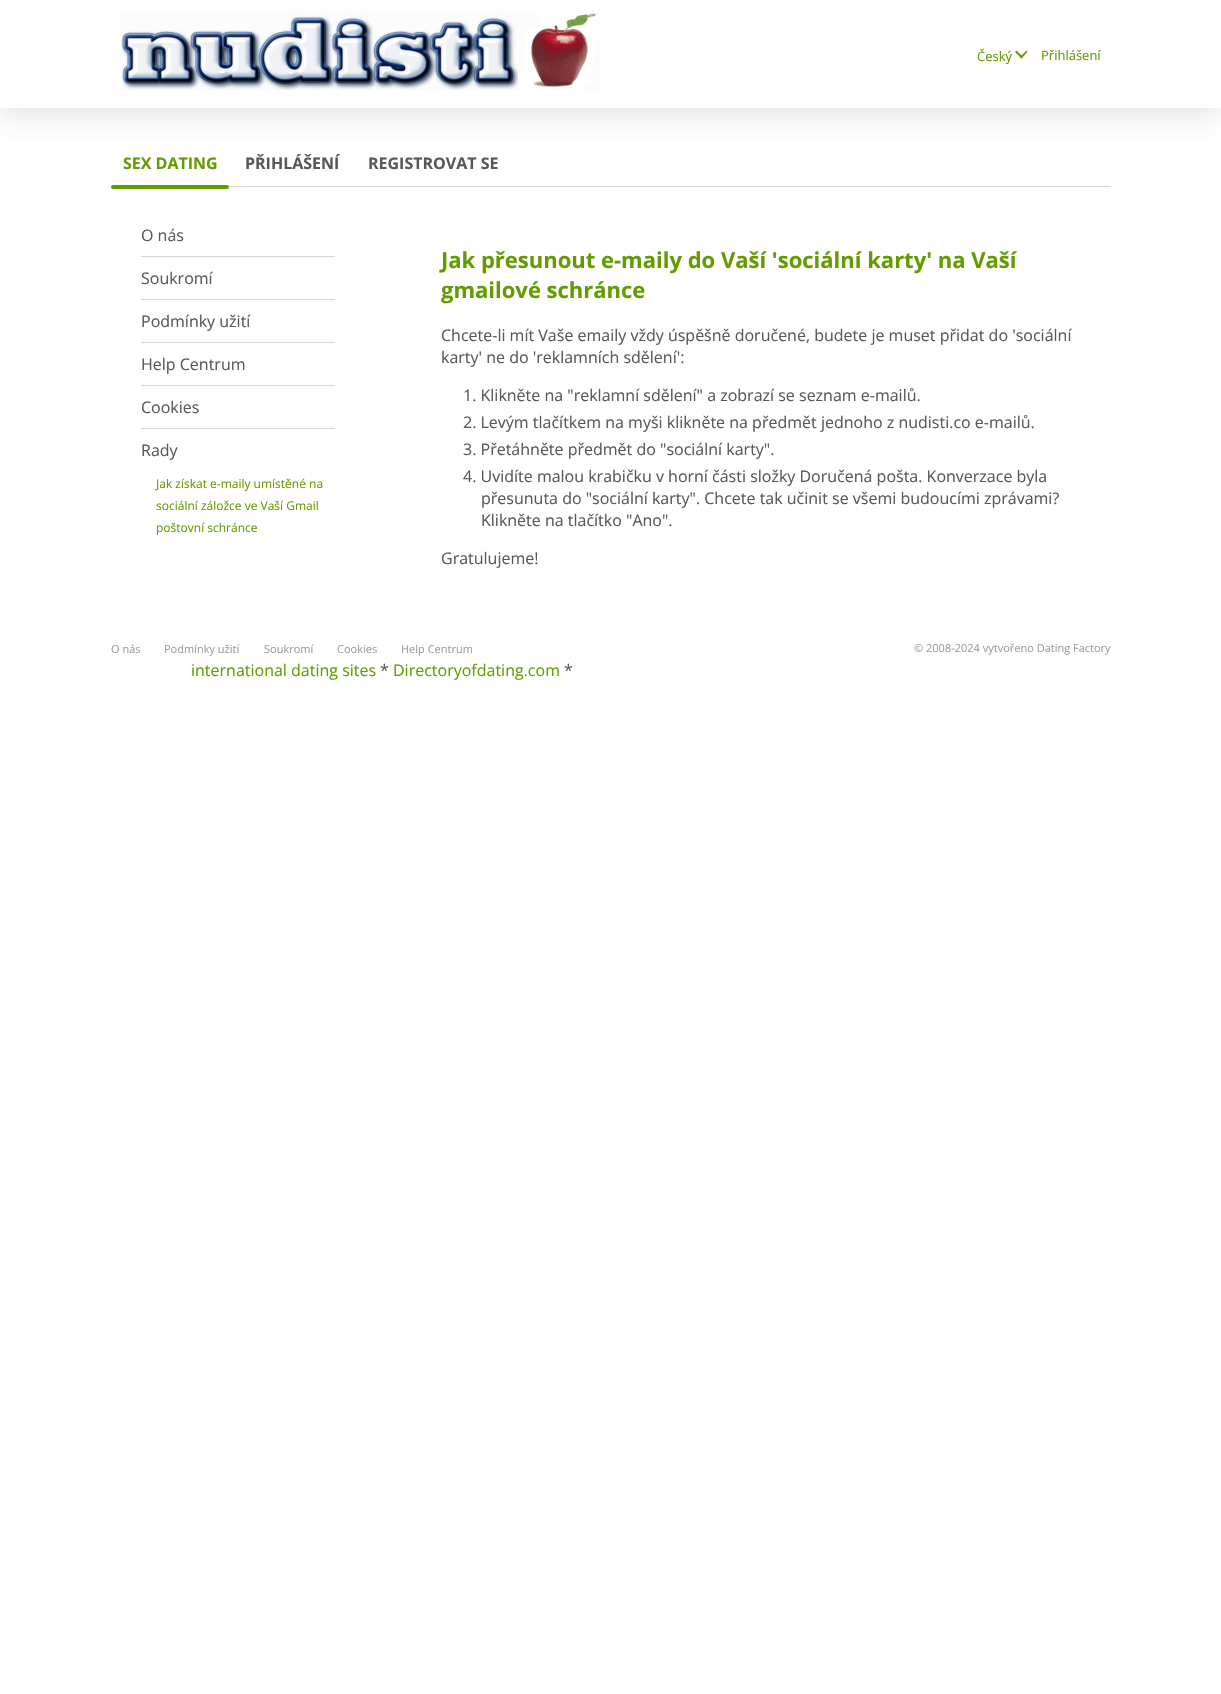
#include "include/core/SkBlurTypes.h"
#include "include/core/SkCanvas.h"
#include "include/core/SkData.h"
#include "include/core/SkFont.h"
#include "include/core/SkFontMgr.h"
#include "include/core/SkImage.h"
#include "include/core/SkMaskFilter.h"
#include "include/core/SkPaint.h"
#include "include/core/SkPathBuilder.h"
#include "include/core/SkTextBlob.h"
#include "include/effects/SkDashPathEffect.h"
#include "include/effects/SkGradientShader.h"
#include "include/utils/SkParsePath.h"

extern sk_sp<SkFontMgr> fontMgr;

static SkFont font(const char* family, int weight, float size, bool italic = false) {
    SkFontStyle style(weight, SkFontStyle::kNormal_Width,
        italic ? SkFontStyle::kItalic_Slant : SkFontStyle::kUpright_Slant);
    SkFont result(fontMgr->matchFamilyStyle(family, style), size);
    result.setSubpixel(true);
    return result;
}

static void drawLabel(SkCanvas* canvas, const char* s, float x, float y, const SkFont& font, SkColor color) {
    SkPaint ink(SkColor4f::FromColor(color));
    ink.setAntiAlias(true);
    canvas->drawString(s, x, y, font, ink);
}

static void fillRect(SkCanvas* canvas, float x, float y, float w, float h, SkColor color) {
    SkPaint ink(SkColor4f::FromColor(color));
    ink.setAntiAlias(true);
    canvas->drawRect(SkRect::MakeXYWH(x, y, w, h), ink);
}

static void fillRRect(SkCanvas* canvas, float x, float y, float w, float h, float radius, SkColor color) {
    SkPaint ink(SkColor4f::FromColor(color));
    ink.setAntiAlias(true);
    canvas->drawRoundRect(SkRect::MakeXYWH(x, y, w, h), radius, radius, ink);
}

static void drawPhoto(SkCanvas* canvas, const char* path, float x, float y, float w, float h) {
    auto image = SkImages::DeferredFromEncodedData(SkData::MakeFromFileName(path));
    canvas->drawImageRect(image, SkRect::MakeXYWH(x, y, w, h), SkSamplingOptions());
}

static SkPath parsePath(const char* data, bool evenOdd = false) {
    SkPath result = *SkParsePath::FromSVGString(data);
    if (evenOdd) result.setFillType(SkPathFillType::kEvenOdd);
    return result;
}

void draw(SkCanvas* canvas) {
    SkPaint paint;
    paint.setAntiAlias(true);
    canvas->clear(0xFFFFFFFF);
    canvas->save();
    canvas->clipRect(SkRect::MakeXYWH(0, 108, 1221, 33));
    paint.setColor(0xFFD7D7D7);
    paint.setMaskFilter(SkMaskFilter::MakeBlur(kNormal_SkBlurStyle, 16));
    canvas->drawRect(SkRect::MakeXYWH(0, 0, 1221, 108), paint);
    paint.setMaskFilter(nullptr);
    canvas->restore();
    drawPhoto(canvas, "assets/img1.png", 121, 10, 480, 80);
    SkFont font1 = font("Open Sans", 400, 13);
    drawLabel(canvas, "Český", 977, 61, font1, 0xFF639C00);
    paint.setColor(0xFF639C00);
    canvas->drawPath(parsePath("M1026.5 50.5L1027.5 52L1021.5 58.5L1020 57Z"), paint);
    canvas->drawPath(parsePath("M1016.5 50.5L1023 57L1021.5 58.5L1015 52Z"), paint);
    drawLabel(canvas, "Přihlášení", 1041, 60, font1, 0xFF639C00);
    fillRect(canvas, 111, 186, 1000, 1, 0xFFD7D7D7);
    SkFont font2 = font("Open Sans", 700, 16);
    drawLabel(canvas, "SEX DATING", 123, 169, font2, 0xFF639C00);
    fillRRect(canvas, 111, 185, 118, 4, 2, 0xFF639C00);
    drawLabel(canvas, "PŘIHLÁŠENÍ", 245, 169, font2, 0xFF585858);
    drawLabel(canvas, "REGISTROVAT SE", 368, 169, font2, 0xFF585858);
    fillRect(canvas, 141, 256, 194, 1, 0xFFD7D7D7);
    SkFont font3 = font("Open Sans", 400, 16);
    drawLabel(canvas, "O nás", 141, 241, font3, 0xFF585858);
    fillRect(canvas, 141, 299, 194, 1, 0xFFD7D7D7);
    drawLabel(canvas, "Soukromí", 141, 284, font3, 0xFF585858);
    fillRect(canvas, 141, 342, 194, 1, 0xFFD7D7D7);
    drawLabel(canvas, "Podmínky užití", 141, 327, font3, 0xFF585858);
    fillRect(canvas, 141, 385, 194, 1, 0xFFD7D7D7);
    drawLabel(canvas, "Help Centrum", 141, 370, font3, 0xFF585858);
    fillRect(canvas, 141, 428, 194, 1, 0xFFD7D7D7);
    drawLabel(canvas, "Cookies", 141, 413, font3, 0xFF585858);
    drawLabel(canvas, "Rady", 141, 456, font3, 0xFF585858);
    SkFont font4 = font("Open Sans", 400, 12);
    drawLabel(canvas, "Jak získat e-maily umístěné na", 156, 488, font4, 0xFF639C00);
    drawLabel(canvas, "sociální záložce ve Vaší Gmail", 156, 510, font4, 0xFF639C00);
    drawLabel(canvas, "poštovní schránce", 156, 532, font4, 0xFF639C00);
    SkFont font5 = font("Open Sans", 700, 22);
    drawLabel(canvas, "Jak přesunout e-maily do Vaší 'sociální karty' na Vaší", 441, 268, font5, 0xFF639C00);
    drawLabel(canvas, "gmailové schránce", 441, 298, font5, 0xFF639C00);
    drawLabel(canvas, "Chcete-li mít Vaše emaily vždy úspěšně doručené, budete je muset přidat do 'sociální", 441, 341, font3, 0xFF585858);
    drawLabel(canvas, "karty' ne do 'reklamních sdělení':", 441, 363, font3, 0xFF585858);
    drawLabel(canvas, "1. Klikněte na \"reklamní sdělení\" a zobrazí se seznam e-mailů.", 463, 401, font3, 0xFF585858);
    drawLabel(canvas, "2. Levým tlačítkem na myši klikněte na předmět jednoho z nudisti.co e-mailů.", 463, 428, font3, 0xFF585858);
    drawLabel(canvas, "3. Přetáhněte předmět do \"sociální karty\".", 463, 455, font3, 0xFF585858);
    drawLabel(canvas, "4. Uvidíte malou krabičku v horní části složky Doručená pošta. Konverzace byla", 463, 482, font3, 0xFF585858);
    drawLabel(canvas, "přesunuta do \"sociální karty\". Chcete tak učinit se všemi budoucími zprávami?", 481, 504, font3, 0xFF585858);
    drawLabel(canvas, "Klikněte na tlačítko \"Ano\".", 481, 526, font3, 0xFF585858);
    drawLabel(canvas, "Gratulujeme!", 441, 564, font3, 0xFF585858);
    SkFont font6 = font("Open Sans", 400, 11);
    drawLabel(canvas, "O nás", 111, 653, font6, 0xFF9C9C9C);
    drawLabel(canvas, "Podmínky užití", 164, 653, font6, 0xFF9C9C9C);
    drawLabel(canvas, "Soukromí", 264, 653, font6, 0xFF9C9C9C);
    drawLabel(canvas, "Cookies", 337, 653, font6, 0xFF9C9C9C);
    drawLabel(canvas, "Help Centrum", 401, 653, font6, 0xFF9C9C9C);
    drawLabel(canvas, "© 2008-2024 vytvořeno Dating Factory", 914, 652, font6, 0xFF9C9C9C);
    drawLabel(canvas, "international dating sites", 191, 676, font3, 0xFF639C00);
    drawLabel(canvas, "*", 380, 676, font3, 0xFF585858);
    drawLabel(canvas, "Directoryofdating.com", 393, 676, font3, 0xFF639C00);
    drawLabel(canvas, "*", 564, 676, font3, 0xFF585858);
}
